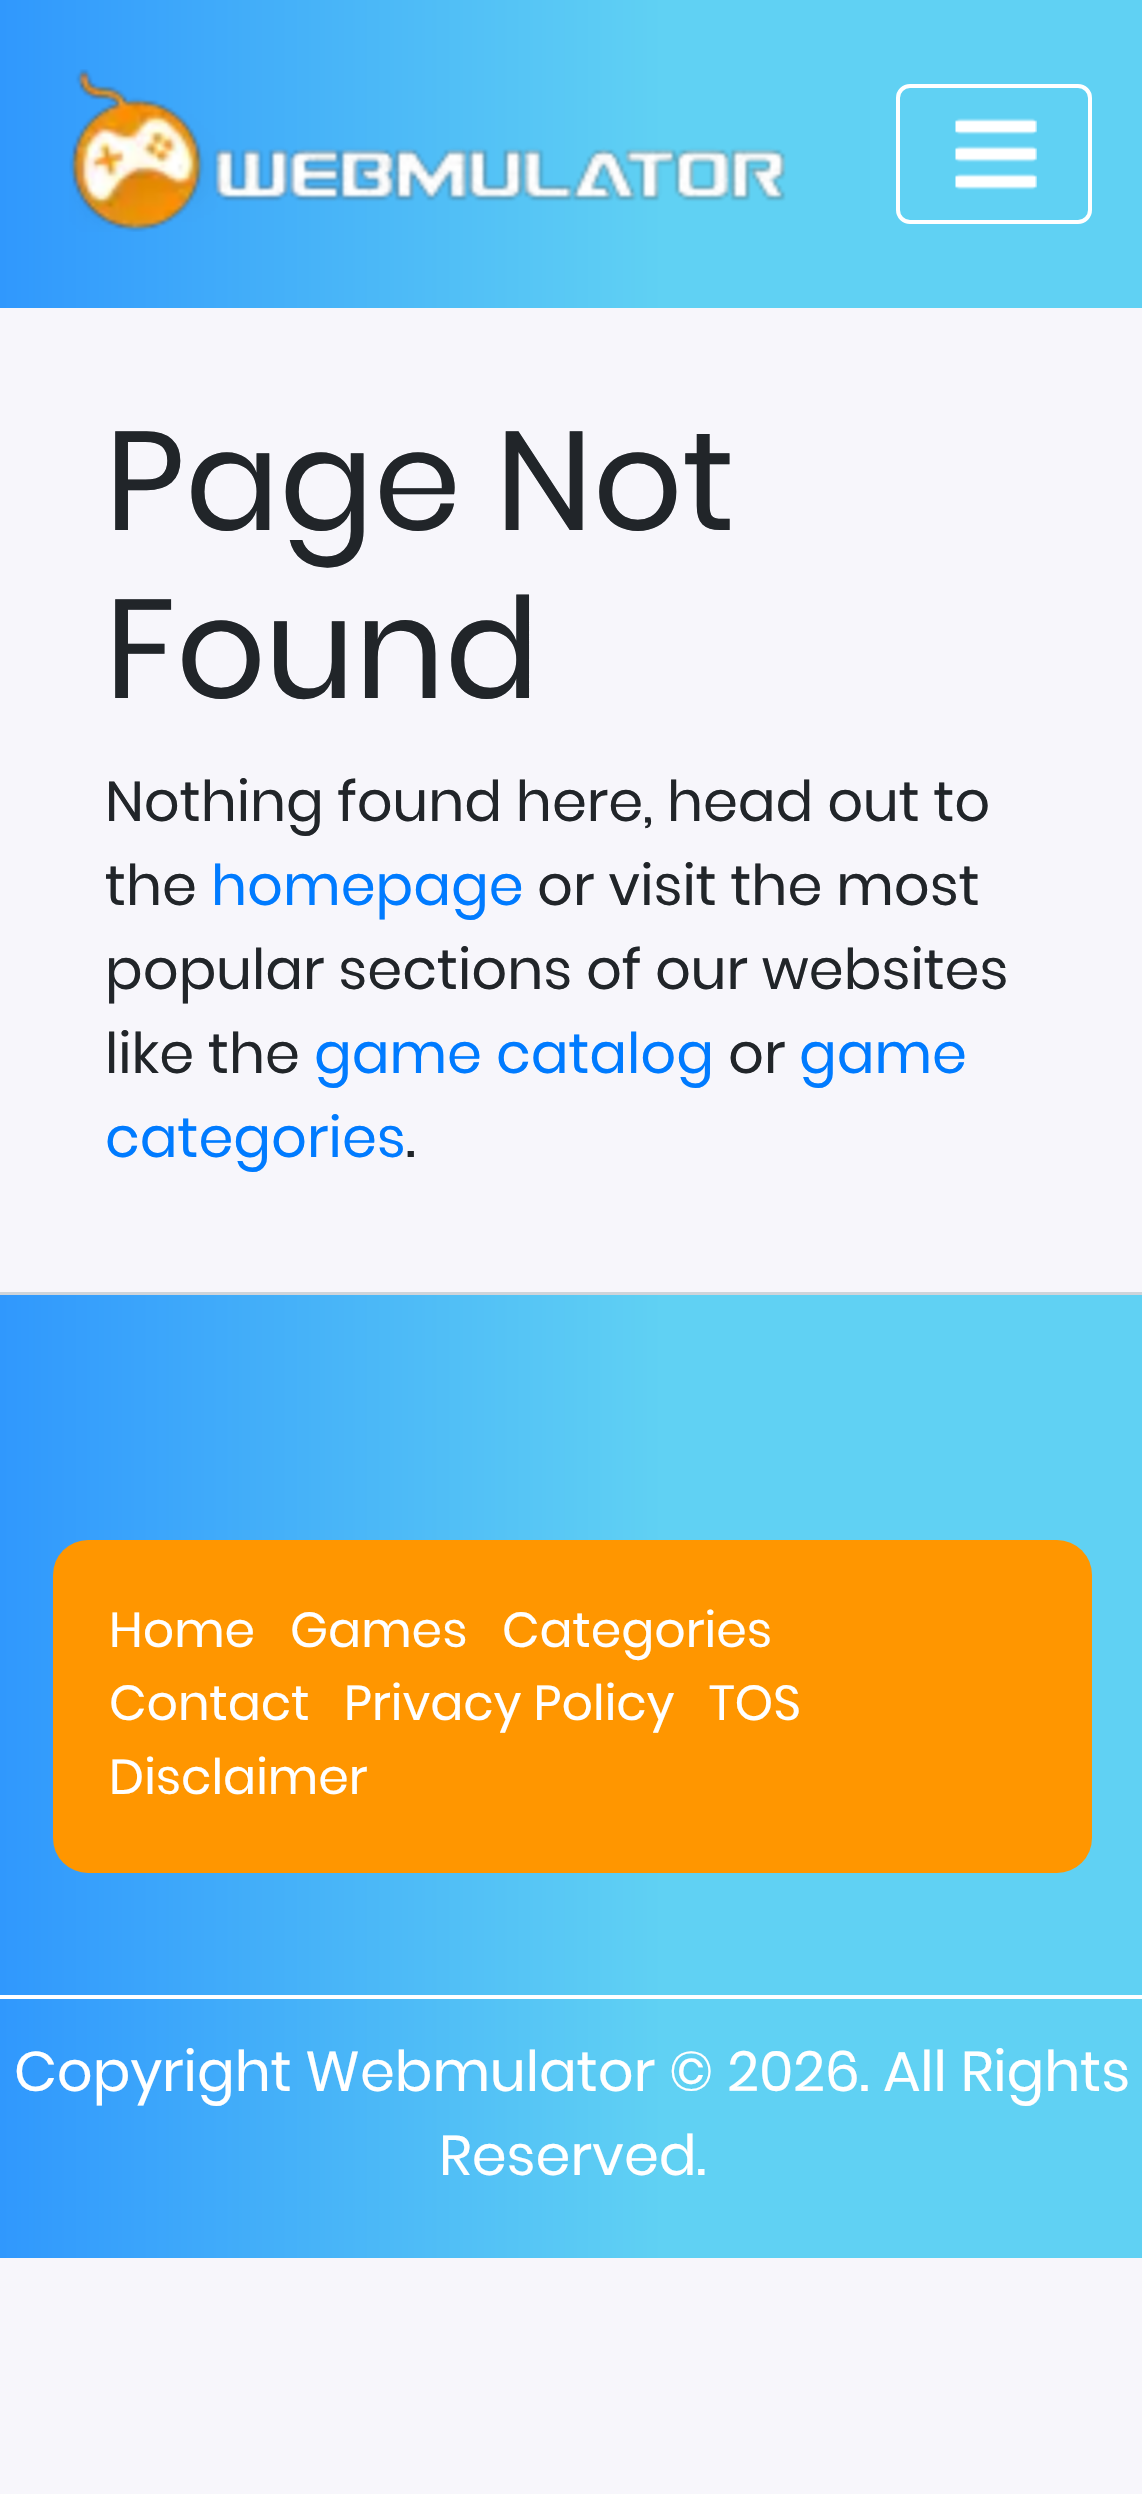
#include "include/core/SkBlurTypes.h"
#include "include/core/SkCanvas.h"
#include "include/core/SkData.h"
#include "include/core/SkFont.h"
#include "include/core/SkFontMgr.h"
#include "include/core/SkImage.h"
#include "include/core/SkMaskFilter.h"
#include "include/core/SkPaint.h"
#include "include/core/SkPathBuilder.h"
#include "include/core/SkTextBlob.h"
#include "include/effects/SkDashPathEffect.h"
#include "include/effects/SkGradientShader.h"
#include "include/utils/SkParsePath.h"

extern sk_sp<SkFontMgr> fontMgr;

static SkFont font(const char* family, int weight, float size, bool italic = false) {
    SkFontStyle style(weight, SkFontStyle::kNormal_Width,
        italic ? SkFontStyle::kItalic_Slant : SkFontStyle::kUpright_Slant);
    SkFont result(fontMgr->matchFamilyStyle(family, style), size);
    result.setSubpixel(true);
    return result;
}

static void drawLabel(SkCanvas* canvas, const char* s, float x, float y, const SkFont& font, SkColor color) {
    SkPaint ink(SkColor4f::FromColor(color));
    ink.setAntiAlias(true);
    canvas->drawString(s, x, y, font, ink);
}

static void fillRect(SkCanvas* canvas, float x, float y, float w, float h, SkColor color) {
    SkPaint ink(SkColor4f::FromColor(color));
    ink.setAntiAlias(true);
    canvas->drawRect(SkRect::MakeXYWH(x, y, w, h), ink);
}

static void fillRRect(SkCanvas* canvas, float x, float y, float w, float h, float radius, SkColor color) {
    SkPaint ink(SkColor4f::FromColor(color));
    ink.setAntiAlias(true);
    canvas->drawRoundRect(SkRect::MakeXYWH(x, y, w, h), radius, radius, ink);
}

static void drawPhoto(SkCanvas* canvas, const char* path, float x, float y, float w, float h) {
    auto image = SkImages::DeferredFromEncodedData(SkData::MakeFromFileName(path));
    canvas->drawImageRect(image, SkRect::MakeXYWH(x, y, w, h), SkSamplingOptions());
}

void draw(SkCanvas* canvas) {
    SkPaint paint;
    paint.setAntiAlias(true);
    canvas->clear(0xFFF7F6FB);
    {
        const SkColor colors[] = {0xFF3098FD, 0xFF60D1F3};
        const float stops[] = {0, 0.58f};
        const SkPoint ends[] = {{0, 154}, {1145, 154}};
        paint.setShader(SkGradientShader::MakeLinear(ends, colors, stops, 2, SkTileMode::kClamp));
        paint.setAlpha(255);
    }
    canvas->drawRect(SkRect::MakeXYWH(0, 0, 1142, 308), paint);
    drawPhoto(canvas, "assets/img1.png", 69, 69, 717, 163);
    paint.setStroke(true);
    paint.setStrokeWidth(4);
    paint.setShader(nullptr);
    paint.setColor(0xFFFFFFFF);
    canvas->drawRoundRect(SkRect::MakeXYWH(898, 86, 192, 136), 12, 12, paint);
    drawPhoto(canvas, "assets/img2.png", 955, 118, 82, 72);
    fillRect(canvas, 0, 1292, 1142, 3, 0xFFCED4DA);
    SkFont font1 = font("Poppins", 400, 140);
    drawLabel(canvas, "Page Not", 105, 530, font1, 0xFF212529);
    drawLabel(canvas, "Found", 105, 698, font1, 0xFF212529);
    SkFont font2 = font("Poppins", 400, 56);
    drawLabel(canvas, "Nothing found here, head out to", 105, 821, font2, 0xFF212529);
    drawLabel(canvas, "the", 105, 905, font2, 0xFF212529);
    drawLabel(canvas, "homepage", 211, 905, font2, 0xFF007BFF);
    drawLabel(canvas, "or visit the most", 537, 905, font2, 0xFF212529);
    drawLabel(canvas, "popular sections of our websites", 105, 989, font2, 0xFF212529);
    drawLabel(canvas, "like the", 105, 1073, font2, 0xFF212529);
    drawLabel(canvas, "game catalog", 314, 1073, font2, 0xFF007BFF);
    drawLabel(canvas, "or", 728, 1073, font2, 0xFF212529);
    drawLabel(canvas, "game", 799, 1073, font2, 0xFF007BFF);
    drawLabel(canvas, "categories", 105, 1157, font2, 0xFF007BFF);
    drawLabel(canvas, ".", 406, 1157, font2, 0xFF212529);
    paint.setStroke(false);
    {
        const SkColor colors[] = {0xFF3098FD, 0xFF60D1F3};
        const float stops[] = {0, 0.58f};
        const SkPoint ends[] = {{0, 1776}, {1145, 1776}};
        paint.setShader(SkGradientShader::MakeLinear(ends, colors, stops, 2, SkTileMode::kClamp));
        paint.setAlpha(255);
    }
    canvas->drawRect(SkRect::MakeXYWH(0, 1295, 1142, 963), paint);
    fillRRect(canvas, 53, 1540, 1039, 333, 35, 0xFFFF9600);
    SkFont font3 = font("Poppins", 400, 49);
    drawLabel(canvas, "Home", 109, 1647, font3, 0xFFFFFFFF);
    drawLabel(canvas, "Games", 290, 1647, font3, 0xFFFFFFFF);
    drawLabel(canvas, "Categories", 502, 1647, font3, 0xFFFFFFFF);
    drawLabel(canvas, "Contact", 109, 1720, font3, 0xFFFFFFFF);
    drawLabel(canvas, "Privacy Policy", 344, 1720, font3, 0xFFFFFFFF);
    drawLabel(canvas, "TOS", 709, 1720, font3, 0xFFFFFFFF);
    drawLabel(canvas, "Disclaimer", 109, 1794, font3, 0xFFFFFFFF);
    fillRect(canvas, 0, 1995, 1142, 4, 0xFFFFFFFF);
    drawLabel(canvas, "Copyright Webmulator © 2026. All Rights", 14, 2091, font2, 0xFFFFFFFF);
    drawLabel(canvas, "Reserved.", 439, 2175, font2, 0xFFFFFFFF);
}
